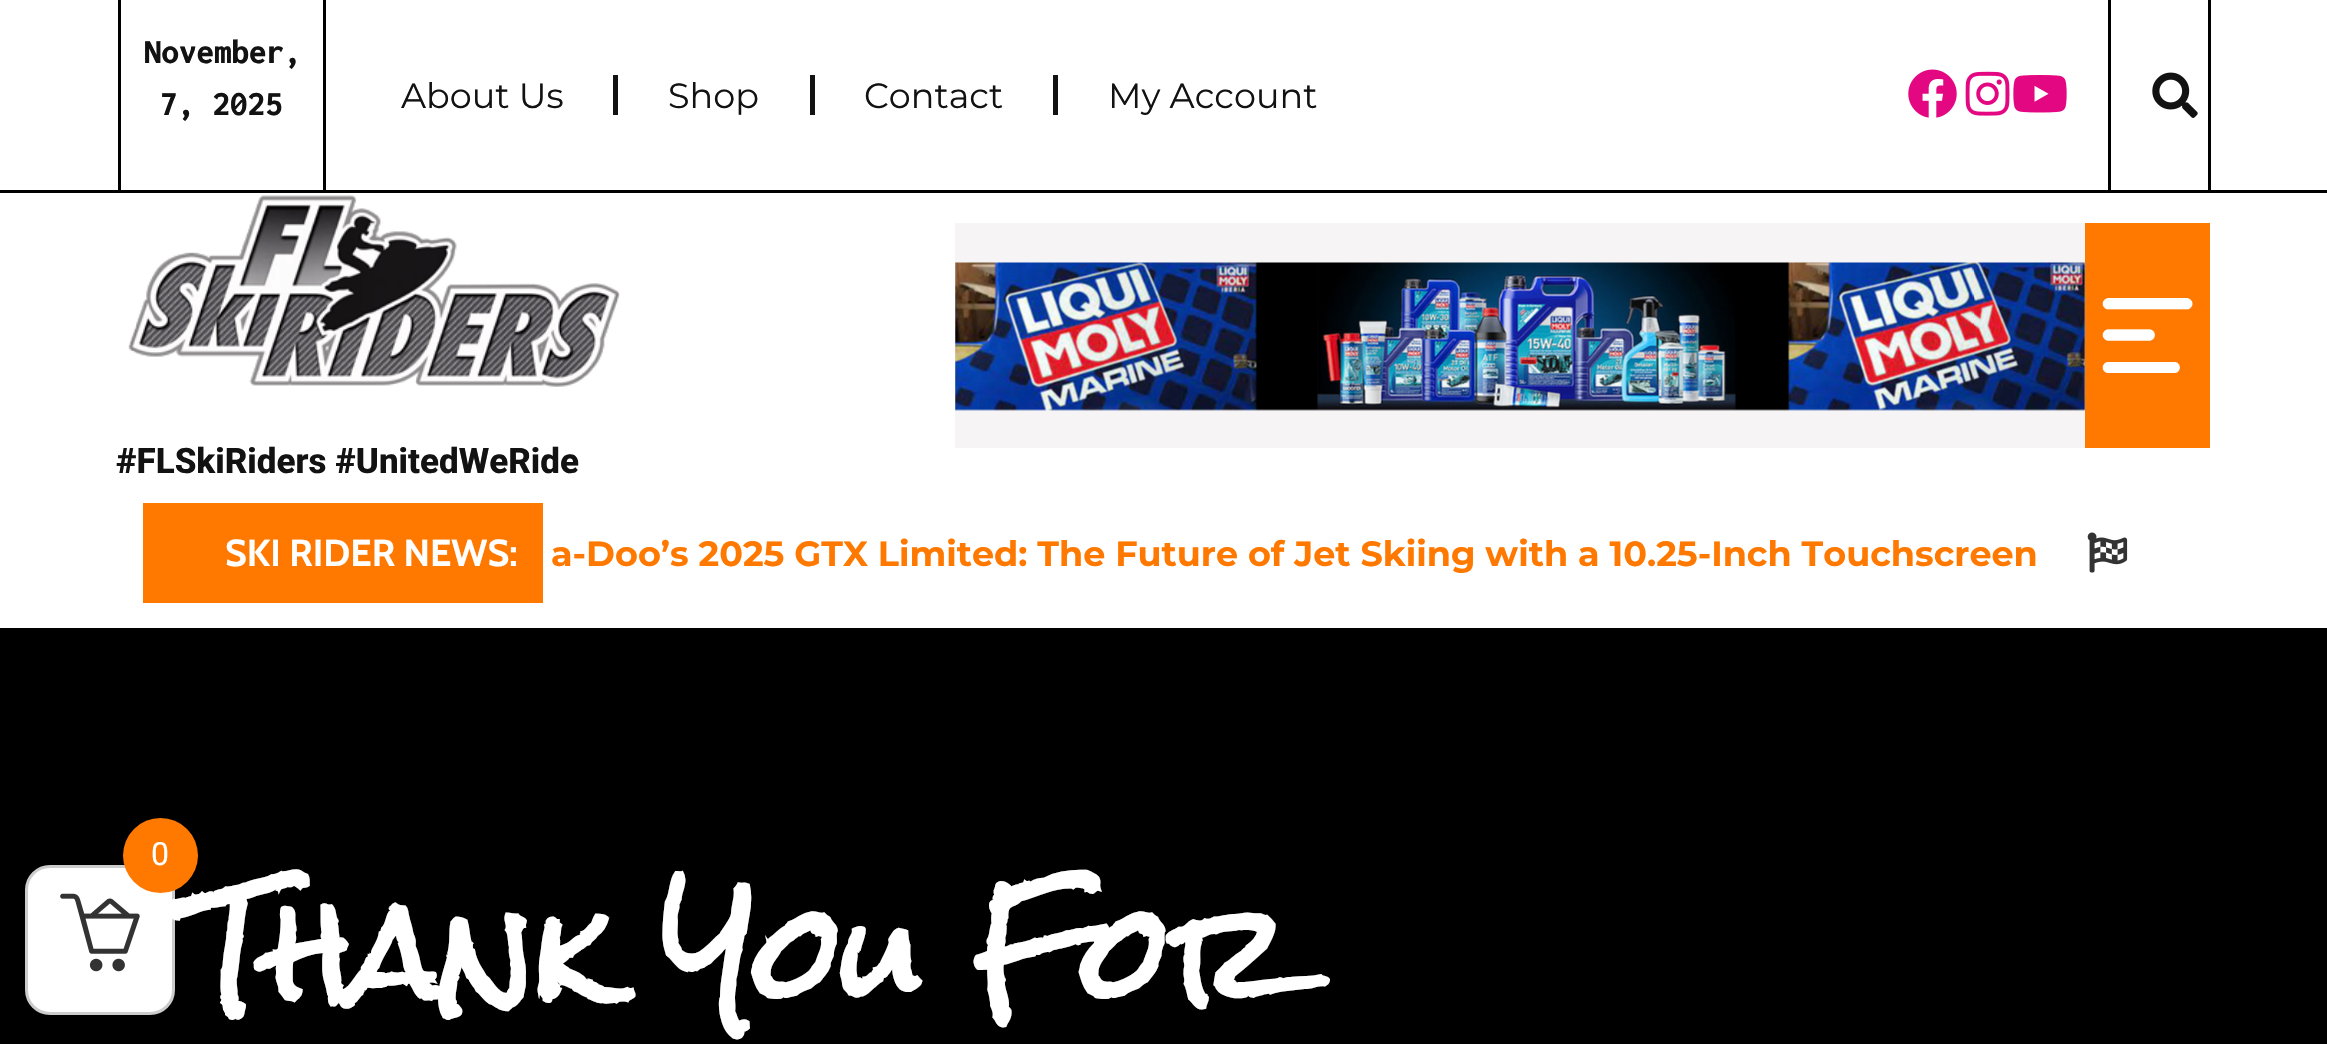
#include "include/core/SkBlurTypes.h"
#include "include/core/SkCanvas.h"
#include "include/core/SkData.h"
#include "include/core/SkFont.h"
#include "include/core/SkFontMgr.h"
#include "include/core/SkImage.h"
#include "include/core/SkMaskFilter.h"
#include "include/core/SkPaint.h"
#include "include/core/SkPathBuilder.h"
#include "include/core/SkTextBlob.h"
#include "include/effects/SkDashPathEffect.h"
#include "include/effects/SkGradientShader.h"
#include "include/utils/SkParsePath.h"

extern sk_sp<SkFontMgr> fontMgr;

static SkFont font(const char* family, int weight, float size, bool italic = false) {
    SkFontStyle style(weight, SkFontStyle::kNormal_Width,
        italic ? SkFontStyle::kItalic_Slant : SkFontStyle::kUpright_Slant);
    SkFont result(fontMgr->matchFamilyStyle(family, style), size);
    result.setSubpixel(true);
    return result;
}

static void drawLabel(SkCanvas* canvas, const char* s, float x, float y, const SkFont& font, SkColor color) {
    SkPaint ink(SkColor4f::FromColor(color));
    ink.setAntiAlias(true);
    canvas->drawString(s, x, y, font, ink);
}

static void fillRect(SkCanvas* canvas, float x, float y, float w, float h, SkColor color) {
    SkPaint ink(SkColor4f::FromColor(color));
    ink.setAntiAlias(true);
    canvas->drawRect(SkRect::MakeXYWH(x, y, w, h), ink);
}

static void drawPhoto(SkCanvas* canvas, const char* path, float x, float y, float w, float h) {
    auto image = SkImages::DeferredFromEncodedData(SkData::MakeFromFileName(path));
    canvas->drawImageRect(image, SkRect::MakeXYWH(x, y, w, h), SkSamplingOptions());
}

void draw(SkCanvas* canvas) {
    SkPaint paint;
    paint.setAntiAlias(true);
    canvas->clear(0xFFFFFFFF);
    fillRect(canvas, 0, 190, 2327, 3, 0xFF000000);
    fillRect(canvas, 323, 0, 3, 190, 0xFF000000);
    fillRect(canvas, 118, 0, 3, 190, 0xFF000000);
    SkFont font1 = font("Inconsolata", 800, 35);
    drawLabel(canvas, "November,", 144, 63, font1, 0xFF121212);
    drawLabel(canvas, "7, 2025", 160, 115, font1, 0xFF121212);
    SkFont font2 = font("Montserrat", 400, 35);
    drawLabel(canvas, "About Us", 401, 108, font2, 0xFF121212);
    fillRect(canvas, 613, 75, 5, 40, 0xFF121212);
    drawLabel(canvas, "Shop", 668, 108, font2, 0xFF121212);
    fillRect(canvas, 810, 75, 5, 40, 0xFF121212);
    drawLabel(canvas, "Contact", 864, 108, font2, 0xFF121212);
    fillRect(canvas, 1053, 75, 5, 40, 0xFF121212);
    drawLabel(canvas, "My Account", 1108, 108, font2, 0xFF121212);
    drawPhoto(canvas, "assets/img1.png", 1908, 69, 49, 49);
    drawPhoto(canvas, "assets/img2.png", 1965, 71, 45, 45);
    drawPhoto(canvas, "assets/img3.png", 2013, 75, 54, 38);
    fillRect(canvas, 2208, 0, 3, 190, 0xFF000000);
    fillRect(canvas, 2108, 0, 3, 190, 0xFF000000);
    drawPhoto(canvas, "assets/img4.png", 2152, 72, 46, 46);
    fillRect(canvas, 955, 223, 1130, 225, 0xFFF6F4F4);
    drawPhoto(canvas, "assets/img5.png", 955, 262, 1130, 149);
    fillRect(canvas, 2085, 223, 125, 225, 0xFFFF7900);
    drawPhoto(canvas, "assets/img6.png", 2102, 298, 91, 75);
    drawPhoto(canvas, "assets/img7.png", 128, 195, 492, 192);
    SkFont font3 = font("Roboto", 800, 35);
    drawLabel(canvas, "#FLSkiRiders #UnitedWeRide", 116, 473, font3, 0xFF121212);
    fillRect(canvas, 143, 503, 400, 100, 0xFFFF7900);
    SkFont font4 = font("Cabin", 700, 37.5f);
    drawLabel(canvas, "SKI RIDER NEWS:", 225, 566, font4, 0xFFFFFFFF);
    SkFont font5 = font("Montserrat", 700, 35);
    drawLabel(canvas, "a-Doo’s 2025 GTX Limited: The Future of Jet Skiing with a 10.25-Inch Touchscreen", 551, 566, font5, 0xFFFF7900);
    drawPhoto(canvas, "assets/img8.png", 2087, 532, 41, 41);
    fillRect(canvas, 0, 628, 2327, 416, 0xFF000000);
    paint.setColor(0xFFFFFFFF);
    canvas->drawRoundRect(SkRect::MakeXYWH(26.5f, 866.5f, 147, 147), 23.5f, 23.5f, paint);
    paint.setStroke(true);
    paint.setStrokeWidth(3);
    paint.setColor(0xFFCCCCCC);
    canvas->drawRoundRect(SkRect::MakeXYWH(26.5f, 866.5f, 147, 147), 23.5f, 23.5f, paint);
    SkFont font6 = font("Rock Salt", 700, 125);
    drawLabel(canvas, "Thank You For", 187, 1003, font6, 0xFFFFFFFF);
    paint.setStroke(false);
    paint.setColor(0xFFFF7900);
    canvas->drawCircle(160.5f, 855.5f, 37.5f, paint);
    SkFont font7 = font("Roboto", 400, 32);
    drawLabel(canvas, "0", 151, 865, font7, 0xFFFFFFFF);
    drawPhoto(canvas, "assets/img9.png", 60, 893, 80, 79);
}
